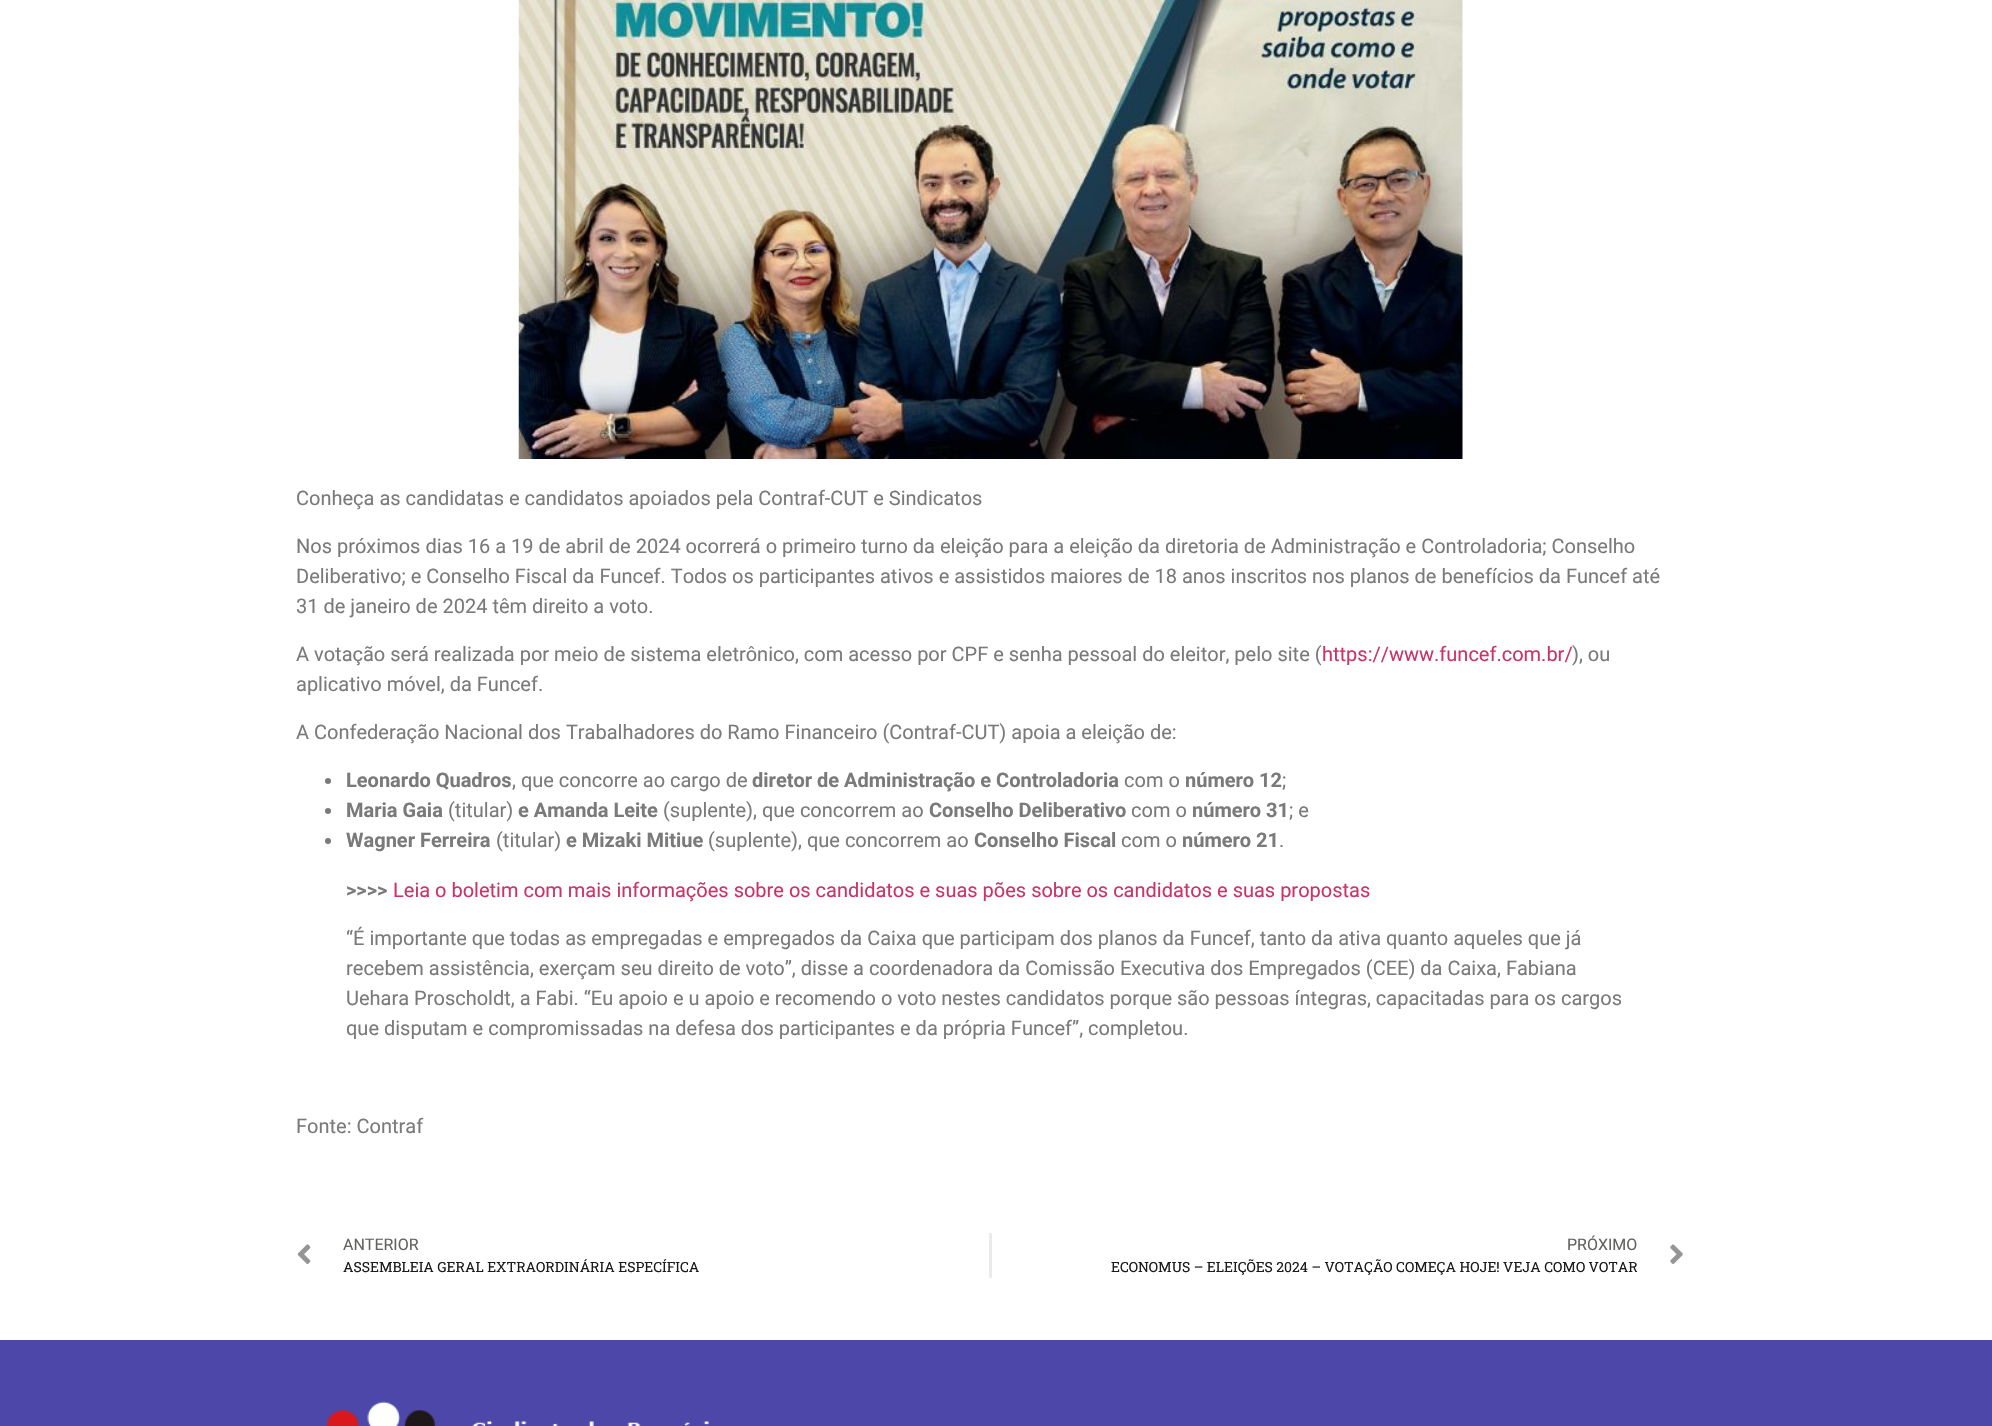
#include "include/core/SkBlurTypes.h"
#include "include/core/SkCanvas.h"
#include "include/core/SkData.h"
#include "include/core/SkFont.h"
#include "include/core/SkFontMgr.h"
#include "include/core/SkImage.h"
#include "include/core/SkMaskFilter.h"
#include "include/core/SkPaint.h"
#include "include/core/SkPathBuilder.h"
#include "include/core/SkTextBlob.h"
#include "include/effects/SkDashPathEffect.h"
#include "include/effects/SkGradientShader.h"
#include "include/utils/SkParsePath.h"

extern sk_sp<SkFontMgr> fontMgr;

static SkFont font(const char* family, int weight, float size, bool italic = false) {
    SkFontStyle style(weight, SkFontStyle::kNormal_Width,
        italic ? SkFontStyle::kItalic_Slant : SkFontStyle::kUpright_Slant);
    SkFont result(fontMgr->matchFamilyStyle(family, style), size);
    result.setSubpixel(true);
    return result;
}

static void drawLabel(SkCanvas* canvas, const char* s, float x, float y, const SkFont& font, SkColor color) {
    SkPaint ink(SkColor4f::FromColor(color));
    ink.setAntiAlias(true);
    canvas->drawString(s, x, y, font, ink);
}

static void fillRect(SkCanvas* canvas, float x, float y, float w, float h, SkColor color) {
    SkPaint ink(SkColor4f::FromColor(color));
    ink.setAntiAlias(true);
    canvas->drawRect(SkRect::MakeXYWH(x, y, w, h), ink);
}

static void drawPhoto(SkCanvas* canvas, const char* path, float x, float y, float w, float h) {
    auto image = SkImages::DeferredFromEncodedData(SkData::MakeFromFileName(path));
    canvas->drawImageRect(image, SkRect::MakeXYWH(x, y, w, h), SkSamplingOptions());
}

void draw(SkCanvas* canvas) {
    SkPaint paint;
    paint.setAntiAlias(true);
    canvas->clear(0xFFFFFFFF);
    drawPhoto(canvas, "assets/img1.png", 518, 0, 945, 459);
    SkFont font1 = font("Roboto", 400, 20);
    drawLabel(canvas, "Conheça as candidatas e candidatos apoiados pela Contraf-CUT e Sindicatos", 296, 505, font1, 0xFF7A7A7A);
    drawLabel(canvas, "Nos próximos dias 16 a 19 de abril de 2024 ocorrerá o primeiro turno da eleição para a eleição da diretoria de Administração e Controladoria; Conselho", 296, 553, font1, 0xFF7A7A7A);
    drawLabel(canvas, "Deliberativo; e Conselho Fiscal da Funcef. Todos os participantes ativos e assistidos maiores de 18 anos inscritos nos planos de benefícios da Funcef até", 296, 583, font1, 0xFF7A7A7A);
    drawLabel(canvas, "31 de janeiro de 2024 têm direito a voto.", 296, 613, font1, 0xFF7A7A7A);
    drawLabel(canvas, "A votação será realizada por meio de sistema eletrônico, com acesso por CPF e senha pessoal do eleitor, pelo site (", 296, 661, font1, 0xFF7A7A7A);
    drawLabel(canvas, "https://www.funcef.com.br/", 1322, 661, font1, 0xFFCC3366);
    drawLabel(canvas, "), ou", 1572, 661, font1, 0xFF7A7A7A);
    drawLabel(canvas, "aplicativo móvel, da Funcef.", 296, 691, font1, 0xFF7A7A7A);
    drawLabel(canvas, "A Confederação Nacional dos Trabalhadores do Ramo Financeiro (Contraf-CUT) apoia a eleição de:", 296, 739, font1, 0xFF7A7A7A);
    paint.setColor(0xFF7A7A7A);
    canvas->drawCircle(328, 781, 3, paint);
    SkFont font2 = font("Roboto", 700, 20);
    drawLabel(canvas, "Leonardo Quadros", 346, 787, font2, 0xFF7A7A7A);
    drawLabel(canvas, ", que concorre ao cargo de", 512, 787, font1, 0xFF7A7A7A);
    drawLabel(canvas, "diretor de Administração e Controladoria", 752, 787, font2, 0xFF7A7A7A);
    drawLabel(canvas, "com o", 1124, 787, font1, 0xFF7A7A7A);
    drawLabel(canvas, "número 12", 1185, 787, font2, 0xFF7A7A7A);
    drawLabel(canvas, ";", 1282, 787, font1, 0xFF7A7A7A);
    canvas->drawCircle(328, 811, 3, paint);
    drawLabel(canvas, "Maria Gaia", 346, 817, font2, 0xFF7A7A7A);
    drawLabel(canvas, "(titular)", 448, 817, font1, 0xFF7A7A7A);
    drawLabel(canvas, "e Amanda Leite", 518, 817, font2, 0xFF7A7A7A);
    drawLabel(canvas, "(suplente), que concorrem ao", 663, 817, font1, 0xFF7A7A7A);
    drawLabel(canvas, "Conselho Deliberativo", 929, 817, font2, 0xFF7A7A7A);
    drawLabel(canvas, "com o", 1131, 817, font1, 0xFF7A7A7A);
    drawLabel(canvas, "número 31", 1192, 817, font2, 0xFF7A7A7A);
    drawLabel(canvas, "; e", 1289, 817, font1, 0xFF7A7A7A);
    canvas->drawCircle(328, 841, 3, paint);
    drawLabel(canvas, "Wagner Ferreira", 346, 847, font2, 0xFF7A7A7A);
    drawLabel(canvas, "(titular)", 496, 847, font1, 0xFF7A7A7A);
    drawLabel(canvas, "e Mizaki Mitiue", 566, 847, font2, 0xFF7A7A7A);
    drawLabel(canvas, "(suplente), que concorrem ao", 708, 847, font1, 0xFF7A7A7A);
    drawLabel(canvas, "Conselho Fiscal", 974, 847, font2, 0xFF7A7A7A);
    drawLabel(canvas, "com o", 1121, 847, font1, 0xFF7A7A7A);
    drawLabel(canvas, "número 21", 1182, 847, font2, 0xFF7A7A7A);
    drawLabel(canvas, ".", 1279, 847, font1, 0xFF7A7A7A);
    drawLabel(canvas, ">>>>", 346, 897, font2, 0xFF7A7A7A);
    drawLabel(canvas, "Leia o boletim com mais informações sobre os candidatos e suas pões sobre os candidatos e suas propostas", 393, 897, font1, 0xFFCC3366);
    drawLabel(canvas, "“É importante que todas as empregadas e empregados da Caixa que participam dos planos da Funcef, tanto da ativa quanto aqueles que já", 346, 945, font1, 0xFF7A7A7A);
    drawLabel(canvas, "recebem assistência, exerçam seu direito de voto”, disse a coordenadora da Comissão Executiva dos Empregados (CEE) da Caixa, Fabiana", 346, 975, font1, 0xFF7A7A7A);
    drawLabel(canvas, "Uehara Proscholdt, a Fabi. “Eu apoio e u apoio e recomendo o voto nestes candidatos porque são pessoas íntegras, capacitadas para os cargos", 346, 1005, font1, 0xFF7A7A7A);
    drawLabel(canvas, "que disputam e compromissadas na defesa dos participantes e da própria Funcef”, completou.", 346, 1035, font1, 0xFF7A7A7A);
    drawLabel(canvas, "Fonte: Contraf", 296, 1133, font1, 0xFF7A7A7A);
    drawPhoto(canvas, "assets/img2.png", 297, 1244, 14, 20);
    SkFont font3 = font("Roboto", 400, 16);
    drawLabel(canvas, "ANTERIOR", 343, 1250, font3, 0xFF62625F);
    SkFont font4 = font("Roboto Slab", 400, 14);
    drawLabel(canvas, "ASSEMBLEIA GERAL EXTRAORDINÁRIA ESPECÍFICA", 343, 1272, font4, 0xFF1B1B1B);
    fillRect(canvas, 989, 1233, 3, 45, 0xFFEBEBEB);
    drawLabel(canvas, "PRÓXIMO", 1567, 1250, font3, 0xFF62625F);
    drawLabel(canvas, "ECONOMUS – ELEIÇÕES 2024 – VOTAÇÃO COMEÇA HOJE! VEJA COMO VOTAR", 1111, 1272, font4, 0xFF1B1B1B);
    drawPhoto(canvas, "assets/img3.png", 1670, 1244, 13, 20);
    fillRect(canvas, 0, 1340, 1992, 86, 0xFF4C47A8);
    drawPhoto(canvas, "assets/img4.png", 326, 1401, 383, 25);
}
